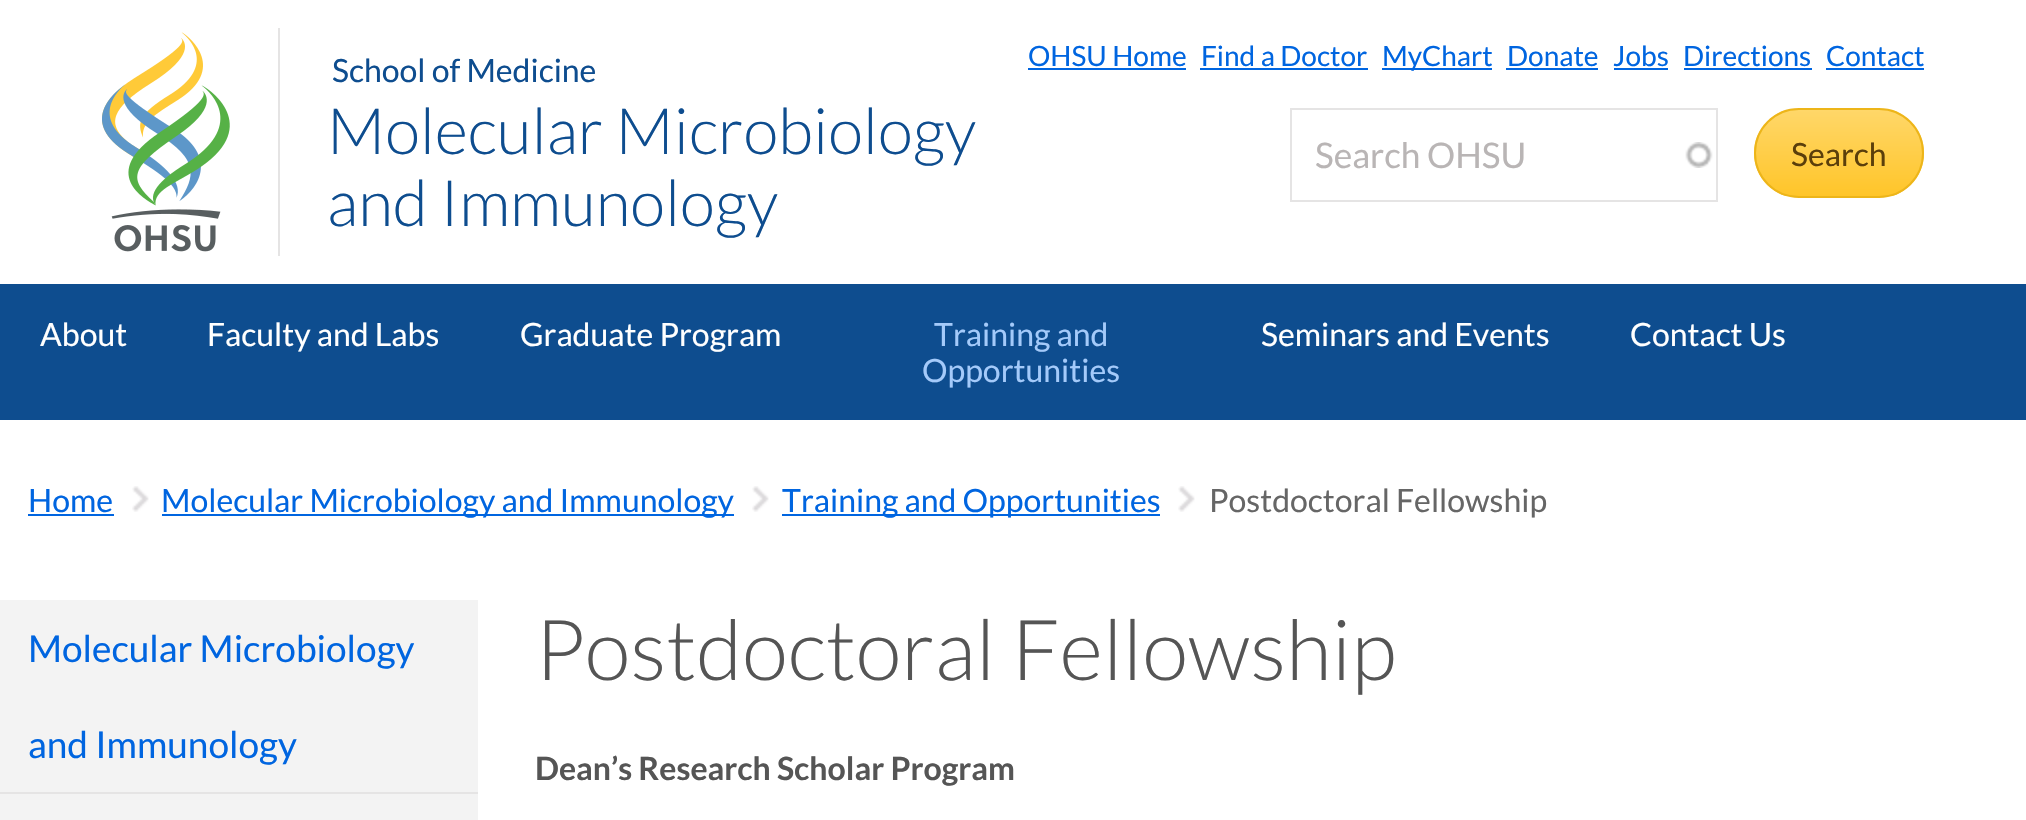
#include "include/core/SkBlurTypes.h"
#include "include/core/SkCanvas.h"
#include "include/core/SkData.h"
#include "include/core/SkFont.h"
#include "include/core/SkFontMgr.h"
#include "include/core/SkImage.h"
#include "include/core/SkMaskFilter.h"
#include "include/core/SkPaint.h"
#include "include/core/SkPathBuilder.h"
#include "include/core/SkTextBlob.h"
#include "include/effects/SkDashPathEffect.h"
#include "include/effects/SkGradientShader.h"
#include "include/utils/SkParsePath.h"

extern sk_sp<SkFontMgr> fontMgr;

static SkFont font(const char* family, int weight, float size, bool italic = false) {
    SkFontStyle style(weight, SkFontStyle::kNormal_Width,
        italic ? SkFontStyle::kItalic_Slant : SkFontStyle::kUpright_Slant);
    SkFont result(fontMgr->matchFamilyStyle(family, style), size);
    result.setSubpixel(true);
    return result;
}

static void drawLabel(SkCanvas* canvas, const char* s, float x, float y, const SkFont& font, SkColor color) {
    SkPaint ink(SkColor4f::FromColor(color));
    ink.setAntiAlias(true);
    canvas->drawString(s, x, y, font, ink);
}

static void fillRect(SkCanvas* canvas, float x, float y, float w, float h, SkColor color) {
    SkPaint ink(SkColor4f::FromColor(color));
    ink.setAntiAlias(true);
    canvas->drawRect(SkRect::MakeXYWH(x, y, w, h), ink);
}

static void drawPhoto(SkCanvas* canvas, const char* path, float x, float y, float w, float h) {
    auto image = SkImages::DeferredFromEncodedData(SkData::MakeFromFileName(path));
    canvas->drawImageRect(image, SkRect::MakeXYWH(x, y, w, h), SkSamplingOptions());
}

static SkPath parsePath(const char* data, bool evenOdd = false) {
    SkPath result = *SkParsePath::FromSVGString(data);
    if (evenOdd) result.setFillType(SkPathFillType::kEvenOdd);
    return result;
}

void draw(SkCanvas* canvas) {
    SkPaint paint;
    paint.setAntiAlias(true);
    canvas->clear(0xFFFFFFFF);
    drawPhoto(canvas, "assets/img1.png", 102, 32, 128, 220);
    fillRect(canvas, 278, 28, 2, 228, 0xFFE5E4E4);
    SkFont font1 = font("Lato", 400, 32);
    drawLabel(canvas, "School of Medicine", 332, 82, font1, 0xFF0E4D8F);
    SkFont font2 = font("Lato", 300, 64);
    drawLabel(canvas, "Molecular Microbiology", 327, 154, font2, 0xFF0E4D8F);
    drawLabel(canvas, "and Immunology", 327, 226, font2, 0xFF0E4D8F);
    SkFont font3 = font("Lato", 400, 28);
    drawLabel(canvas, "OHSU Home", 1028, 66, font3, 0xFF0065E0);
    fillRect(canvas, 1028, 68, 158, 2, 0xFF0065E0);
    drawLabel(canvas, "Find a Doctor", 1201, 66, font3, 0xFF0065E0);
    fillRect(canvas, 1200, 68, 168, 2, 0xFF0065E0);
    fillRect(canvas, 1382, 68, 110, 2, 0xFF0065E0);
    drawLabel(canvas, "MyChart", 1382, 66, font3, 0xFF0065E0);
    drawLabel(canvas, "Donate", 1507, 66, font3, 0xFF0065E0);
    fillRect(canvas, 1506, 68, 92, 2, 0xFF0065E0);
    drawLabel(canvas, "Jobs", 1613, 66, font3, 0xFF0065E0);
    fillRect(canvas, 1614, 68, 54, 2, 0xFF0065E0);
    drawLabel(canvas, "Directions", 1683, 66, font3, 0xFF0065E0);
    fillRect(canvas, 1684, 68, 128, 2, 0xFF0065E0);
    drawLabel(canvas, "Contact", 1826, 66, font3, 0xFF0065E0);
    fillRect(canvas, 1826, 68, 98, 2, 0xFF0065E0);
    drawPhoto(canvas, "assets/img2.png", 1685, 142, 28, 26);
    paint.setStroke(true);
    paint.setStrokeWidth(2);
    paint.setColor(0xFFE5E4E4);
    canvas->drawRect(SkRect::MakeXYWH(1291, 109, 426, 92), paint);
    SkFont font4 = font("Lato", 400, 35.25f);
    drawLabel(canvas, "Search OHSU", 1315, 168, font4, 0xFFB9B5B5);
    canvas->save();
    canvas->clipPath(parsePath("M1799 108H1879C1904 108 1924 128 1924 153C1924 178 1904 198 1879 198H1799C1774 198 1754 178 1754 153C1754 128 1774 108 1799 108Z"), true);
    paint.setStroke(false);
    {
        const SkColor colors[] = {0xFFFFD769, 0xFFFFC529};
        const float stops[] = {0, 1};
        const SkPoint ends[] = {{1839, 110}, {1839, 196}};
        paint.setShader(SkGradientShader::MakeLinear(ends, colors, stops, 2, SkTileMode::kClamp));
        paint.setAlpha(255);
    }
    canvas->drawRect(SkRect::MakeXYWH(1754, 110, 170, 86), paint);
    canvas->restore();
    paint.setStroke(true);
    paint.setShader(nullptr);
    paint.setColor(0xFFEDB519);
    canvas->drawRoundRect(SkRect::MakeXYWH(1755, 109, 168, 88), 44, 44, paint);
    drawLabel(canvas, "Search", 1791, 166, font1, 0xFF5B3F0B);
    fillRect(canvas, 0, 284, 2026, 136, 0xFF0E4D8F);
    drawLabel(canvas, "About", 40, 346, font1, 0xFFFFFFFF);
    drawLabel(canvas, "Faculty and Labs", 207, 346, font1, 0xFFFFFFFF);
    drawLabel(canvas, "Graduate Program", 520, 346, font1, 0xFFFFFFFF);
    drawLabel(canvas, "Training and", 934, 346, font1, 0xFFA4CAFA);
    drawLabel(canvas, "Opportunities", 922, 382, font1, 0xFFA4CAFA);
    drawLabel(canvas, "Seminars and Events", 1261, 346, font1, 0xFFFFFFFF);
    drawLabel(canvas, "Contact Us", 1630, 346, font1, 0xFFFFFFFF);
    drawLabel(canvas, "Home", 28, 512, font1, 0xFF0065E0);
    fillRect(canvas, 28, 514, 86, 2, 0xFF0065E0);
    drawPhoto(canvas, "assets/img3.png", 132, 486, 17, 26);
    fillRect(canvas, 162, 514, 572, 2, 0xFF0065E0);
    drawLabel(canvas, "Molecular Microbiology and Immunology", 161, 512, font1, 0xFF0065E0);
    drawPhoto(canvas, "assets/img3.png", 752, 486, 17, 26);
    fillRect(canvas, 782, 514, 378, 2, 0xFF0065E0);
    drawLabel(canvas, "Training and Opportunities", 782, 512, font1, 0xFF0065E0);
    drawPhoto(canvas, "assets/img3.png", 1178, 486, 17, 26);
    drawLabel(canvas, "Postdoctoral Fellowship", 1209, 512, font1, 0xFF666666);
    fillRect(canvas, 0, 600, 478, 192, 0xFFF3F3F3);
    fillRect(canvas, 0, 792, 478, 2, 0xFFE5E4E4);
    SkFont font5 = font("Lato", 400, 37);
    drawLabel(canvas, "Molecular Microbiology", 28, 662, font5, 0xFF0065E0);
    drawLabel(canvas, "and Immunology", 28, 758, font5, 0xFF0065E0);
    fillRect(canvas, 0, 794, 478, 26, 0xFFF3F3F3);
    SkFont font6 = font("Lato", 300, 84);
    drawLabel(canvas, "Postdoctoral Fellowship", 535, 680, font6, 0xFF555555);
    SkFont font7 = font("Lato", 700, 32);
    drawLabel(canvas, "Dean’s Research Scholar Program", 535, 780, font7, 0xFF555555);
}
